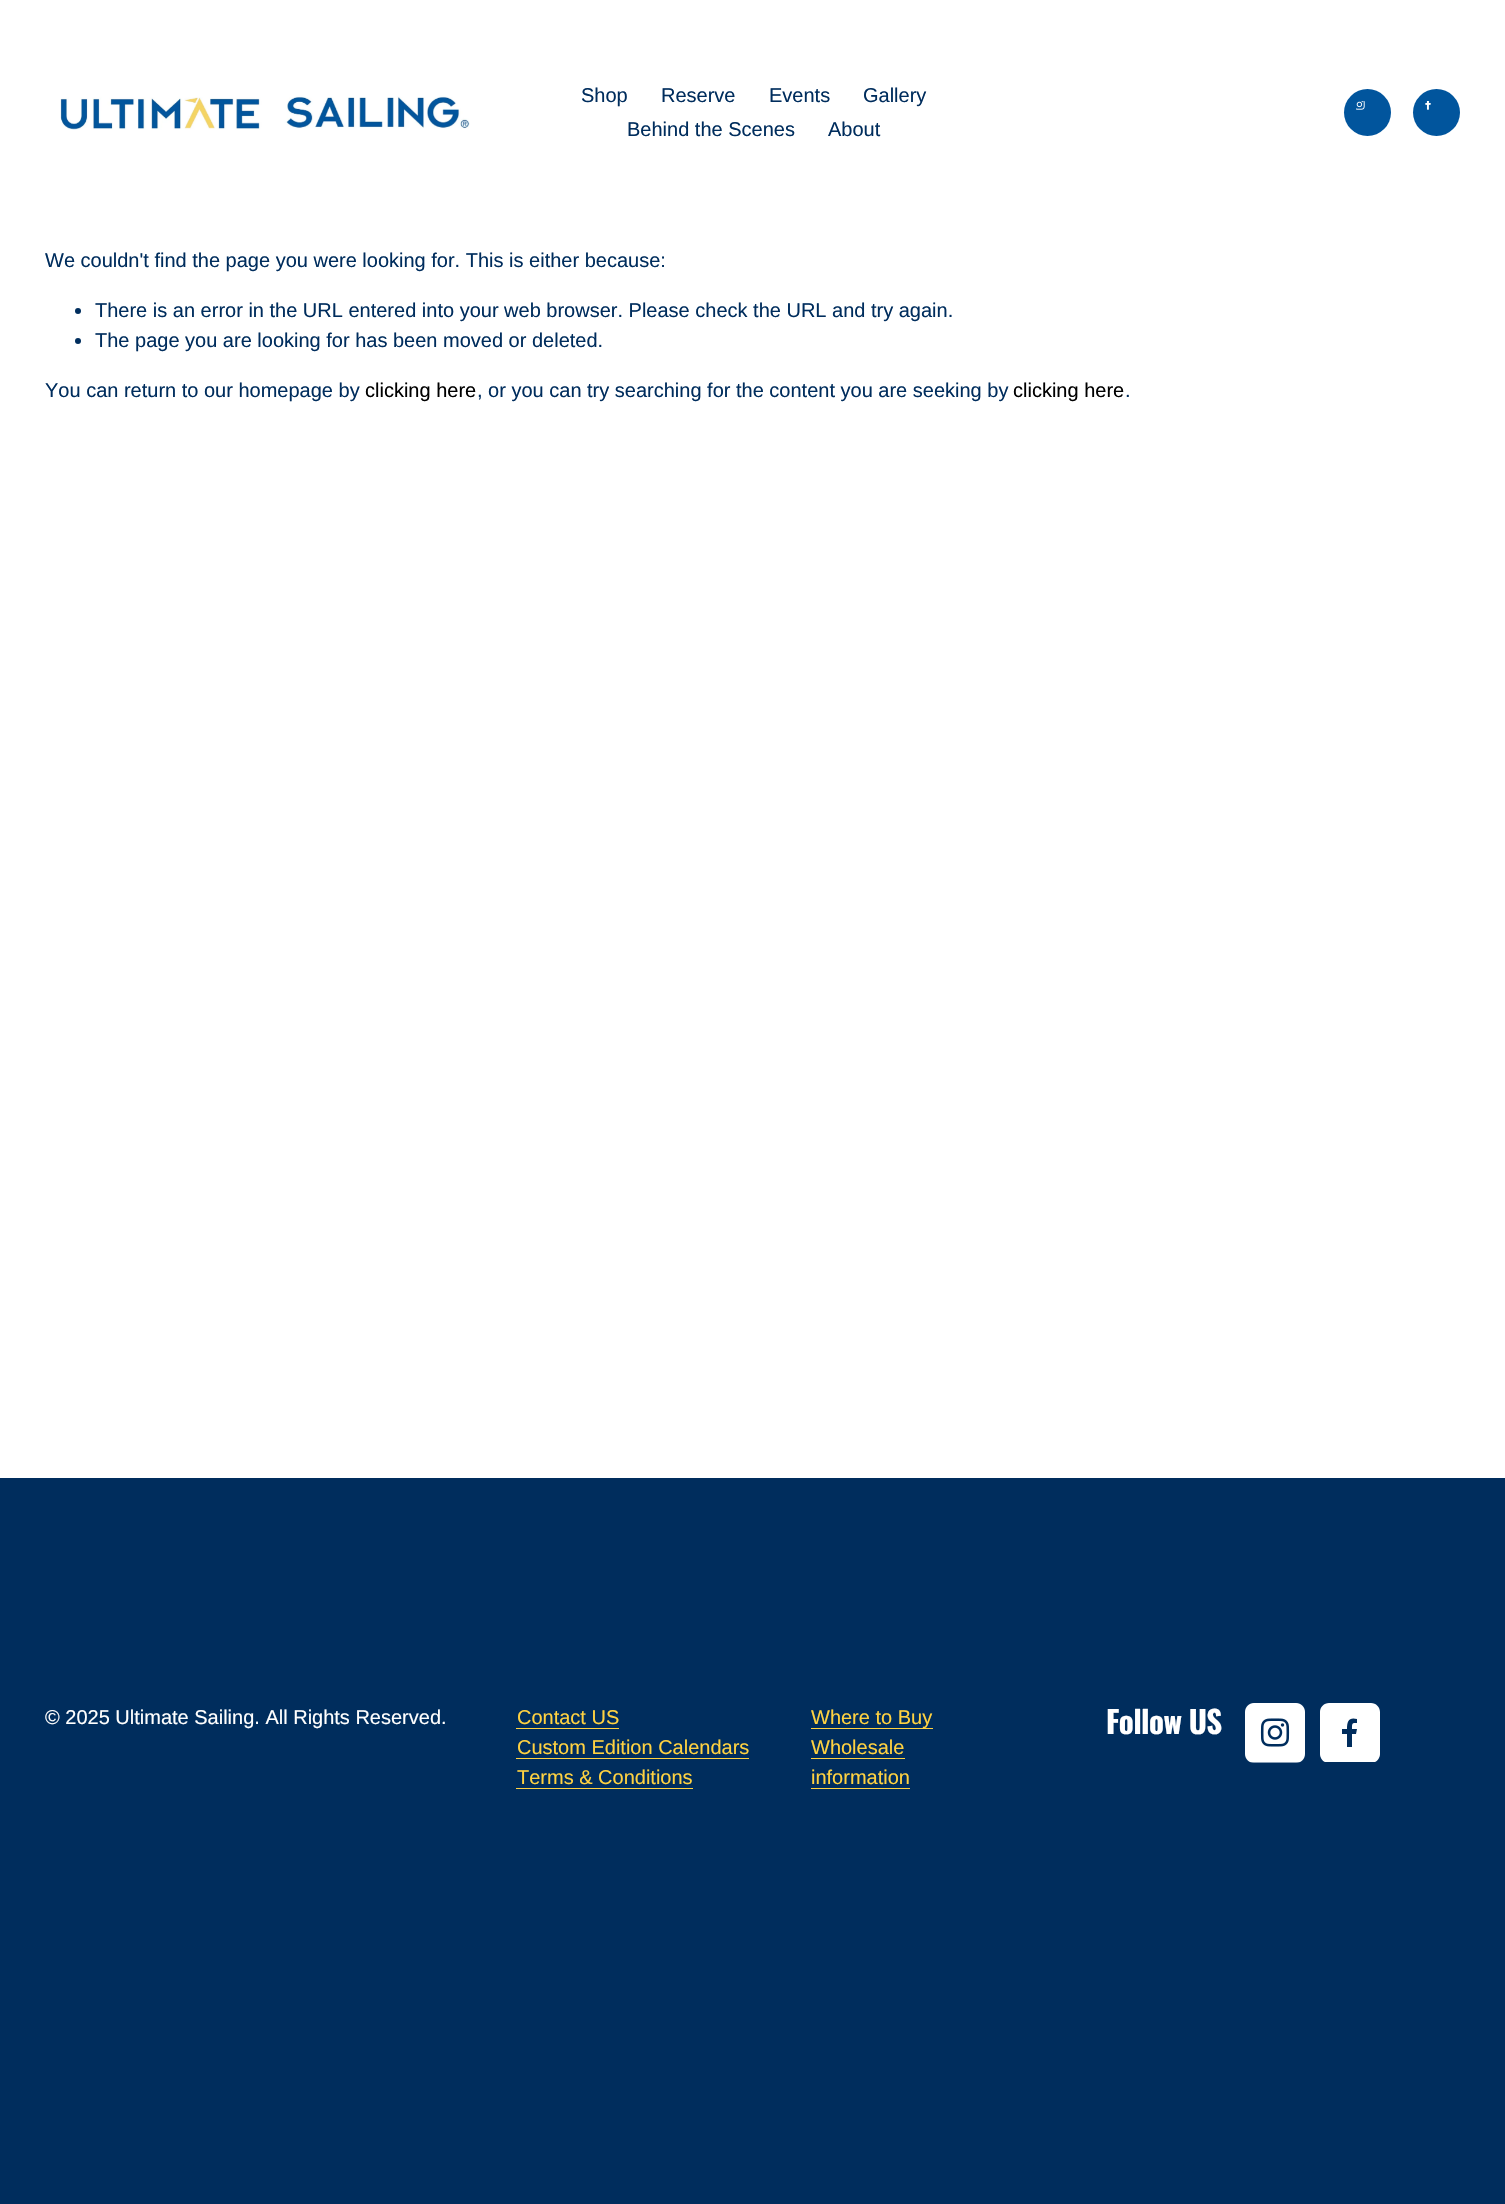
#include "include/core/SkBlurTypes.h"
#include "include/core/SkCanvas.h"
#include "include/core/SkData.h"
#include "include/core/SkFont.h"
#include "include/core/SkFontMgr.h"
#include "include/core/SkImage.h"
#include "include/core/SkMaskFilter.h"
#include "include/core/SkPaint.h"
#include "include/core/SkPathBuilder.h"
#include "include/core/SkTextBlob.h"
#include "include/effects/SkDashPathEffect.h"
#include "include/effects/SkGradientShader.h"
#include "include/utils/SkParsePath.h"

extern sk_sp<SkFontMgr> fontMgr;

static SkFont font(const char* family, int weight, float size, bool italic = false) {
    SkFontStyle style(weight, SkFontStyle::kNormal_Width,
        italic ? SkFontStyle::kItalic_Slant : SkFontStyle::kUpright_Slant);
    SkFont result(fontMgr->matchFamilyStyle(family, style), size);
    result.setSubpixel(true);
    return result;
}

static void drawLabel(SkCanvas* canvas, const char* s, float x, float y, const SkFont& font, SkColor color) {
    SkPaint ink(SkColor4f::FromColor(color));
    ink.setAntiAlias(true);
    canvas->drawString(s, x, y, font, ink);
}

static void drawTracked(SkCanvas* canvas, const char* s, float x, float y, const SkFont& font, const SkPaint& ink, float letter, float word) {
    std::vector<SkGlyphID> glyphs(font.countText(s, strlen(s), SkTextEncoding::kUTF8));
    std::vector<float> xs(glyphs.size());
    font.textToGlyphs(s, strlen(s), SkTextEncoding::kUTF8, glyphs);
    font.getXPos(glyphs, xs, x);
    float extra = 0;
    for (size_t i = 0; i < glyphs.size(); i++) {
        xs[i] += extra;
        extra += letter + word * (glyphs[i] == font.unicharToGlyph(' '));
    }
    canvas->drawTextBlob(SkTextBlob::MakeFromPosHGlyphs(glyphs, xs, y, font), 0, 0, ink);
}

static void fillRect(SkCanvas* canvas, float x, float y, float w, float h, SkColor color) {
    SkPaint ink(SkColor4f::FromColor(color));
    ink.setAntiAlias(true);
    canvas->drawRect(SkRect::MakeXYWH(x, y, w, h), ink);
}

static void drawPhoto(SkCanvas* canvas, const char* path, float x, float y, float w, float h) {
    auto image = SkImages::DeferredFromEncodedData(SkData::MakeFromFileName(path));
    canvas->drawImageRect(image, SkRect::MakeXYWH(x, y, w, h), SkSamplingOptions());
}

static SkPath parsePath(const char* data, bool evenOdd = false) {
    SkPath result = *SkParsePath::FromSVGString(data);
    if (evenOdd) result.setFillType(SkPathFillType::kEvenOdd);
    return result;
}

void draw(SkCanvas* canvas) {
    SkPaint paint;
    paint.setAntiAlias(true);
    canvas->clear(0xFFFFFFFF);
    drawPhoto(canvas, "assets/img1.png", 60, 95, 410, 35);
    SkFont font1 = font("Arimo", 400, 20);
    drawLabel(canvas, "Shop", 581, 102, font1, 0xFF002D5D);
    drawLabel(canvas, "Reserve", 661, 102, font1, 0xFF002D5D);
    drawLabel(canvas, "Events", 769, 102, font1, 0xFF002D5D);
    drawLabel(canvas, "Gallery", 863, 102, font1, 0xFF002D5D);
    drawLabel(canvas, "Behind the Scenes", 627, 136, font1, 0xFF002D5D);
    drawLabel(canvas, "About", 828, 136, font1, 0xFF002D5D);
    paint.setColor(0xFF01559D);
    canvas->drawCircle(1367.5f, 112.5f, 23.5f, paint);
    drawPhoto(canvas, "assets/img2.png", 1356, 101, 9, 9);
    canvas->drawCircle(1436.5f, 112.5f, 23.5f, paint);
    drawPhoto(canvas, "assets/img3.png", 1425, 101, 6, 9);
    drawLabel(canvas, "We couldn't find the page you were looking for. This is either because:", 45, 267, font1, 0xFF002D5D);
    paint.setColor(0xFF002D5D);
    canvas->drawCircle(78, 311, 3, paint);
    drawLabel(canvas, "There is an error in the URL entered into your web browser. Please check the URL and try again.", 95, 317, font1, 0xFF002D5D);
    canvas->drawCircle(78, 341, 3, paint);
    drawLabel(canvas, "The page you are looking for has been moved or deleted.", 95, 347, font1, 0xFF002D5D);
    drawLabel(canvas, "You can return to our homepage by", 45, 397, font1, 0xFF002D5D);
    drawLabel(canvas, "clicking here", 365, 397, font1, 0xFF000000);
    drawLabel(canvas, ", or you can try searching for the content you are seeking by", 477, 397, font1, 0xFF002D5D);
    drawLabel(canvas, "clicking here", 1013, 397, font1, 0xFF000000);
    drawLabel(canvas, ".", 1125, 397, font1, 0xFF002D5D);
    fillRect(canvas, 0, 1478, 1505, 726, 0xFF002D5D);
    drawLabel(canvas, "© 2025 Ultimate Sailing. All Rights Reserved.", 45, 1724, font1, 0xFFFFFFFF);
    drawLabel(canvas, "Contact US", 517, 1724, font1, 0xFFFFD241);
    fillRect(canvas, 516, 1728, 103, 1, 0xFFFFD241);
    drawLabel(canvas, "Custom Edition Calendars", 517, 1754, font1, 0xFFFFD241);
    fillRect(canvas, 516, 1758, 233, 1, 0xFFFFD241);
    drawLabel(canvas, "Terms & Conditions", 517, 1784, font1, 0xFFFFD241);
    fillRect(canvas, 516, 1788, 177, 1, 0xFFFFD241);
    fillRect(canvas, 811, 1728, 122, 1, 0xFFFFD241);
    drawLabel(canvas, "Where to Buy", 811, 1724, font1, 0xFFFFD241);
    drawLabel(canvas, "Wholesale", 811, 1754, font1, 0xFFFFD241);
    fillRect(canvas, 811, 1758, 94, 1, 0xFFFFD241);
    drawLabel(canvas, "information", 811, 1784, font1, 0xFFFFD241);
    fillRect(canvas, 811, 1788, 99, 1, 0xFFFFD241);
    SkFont font2 = font("Oswald", 700, 31);
    paint.setColor(0xFFFFFFFF);
    drawTracked(canvas, "Follow US", 1106, 1734, font2, paint, -0.6f, 0);
    drawPhoto(canvas, "assets/img4.png", 1245, 1703, 60, 60);
    canvas->drawPath(parsePath("M1329 1703C1324 1703 1320 1707 1320 1712V1754C1320 1757 1322 1761 1325 1762H1375C1378 1761 1380 1757 1380 1754V1712C1380 1707 1376 1703 1371 1703ZM1357 1723V1719C1349 1717 1347 1721 1347 1729H1342V1734H1347V1747H1352V1734H1356L1357 1729H1352C1352 1723 1352 1723 1357 1723Z", true), paint);
}
